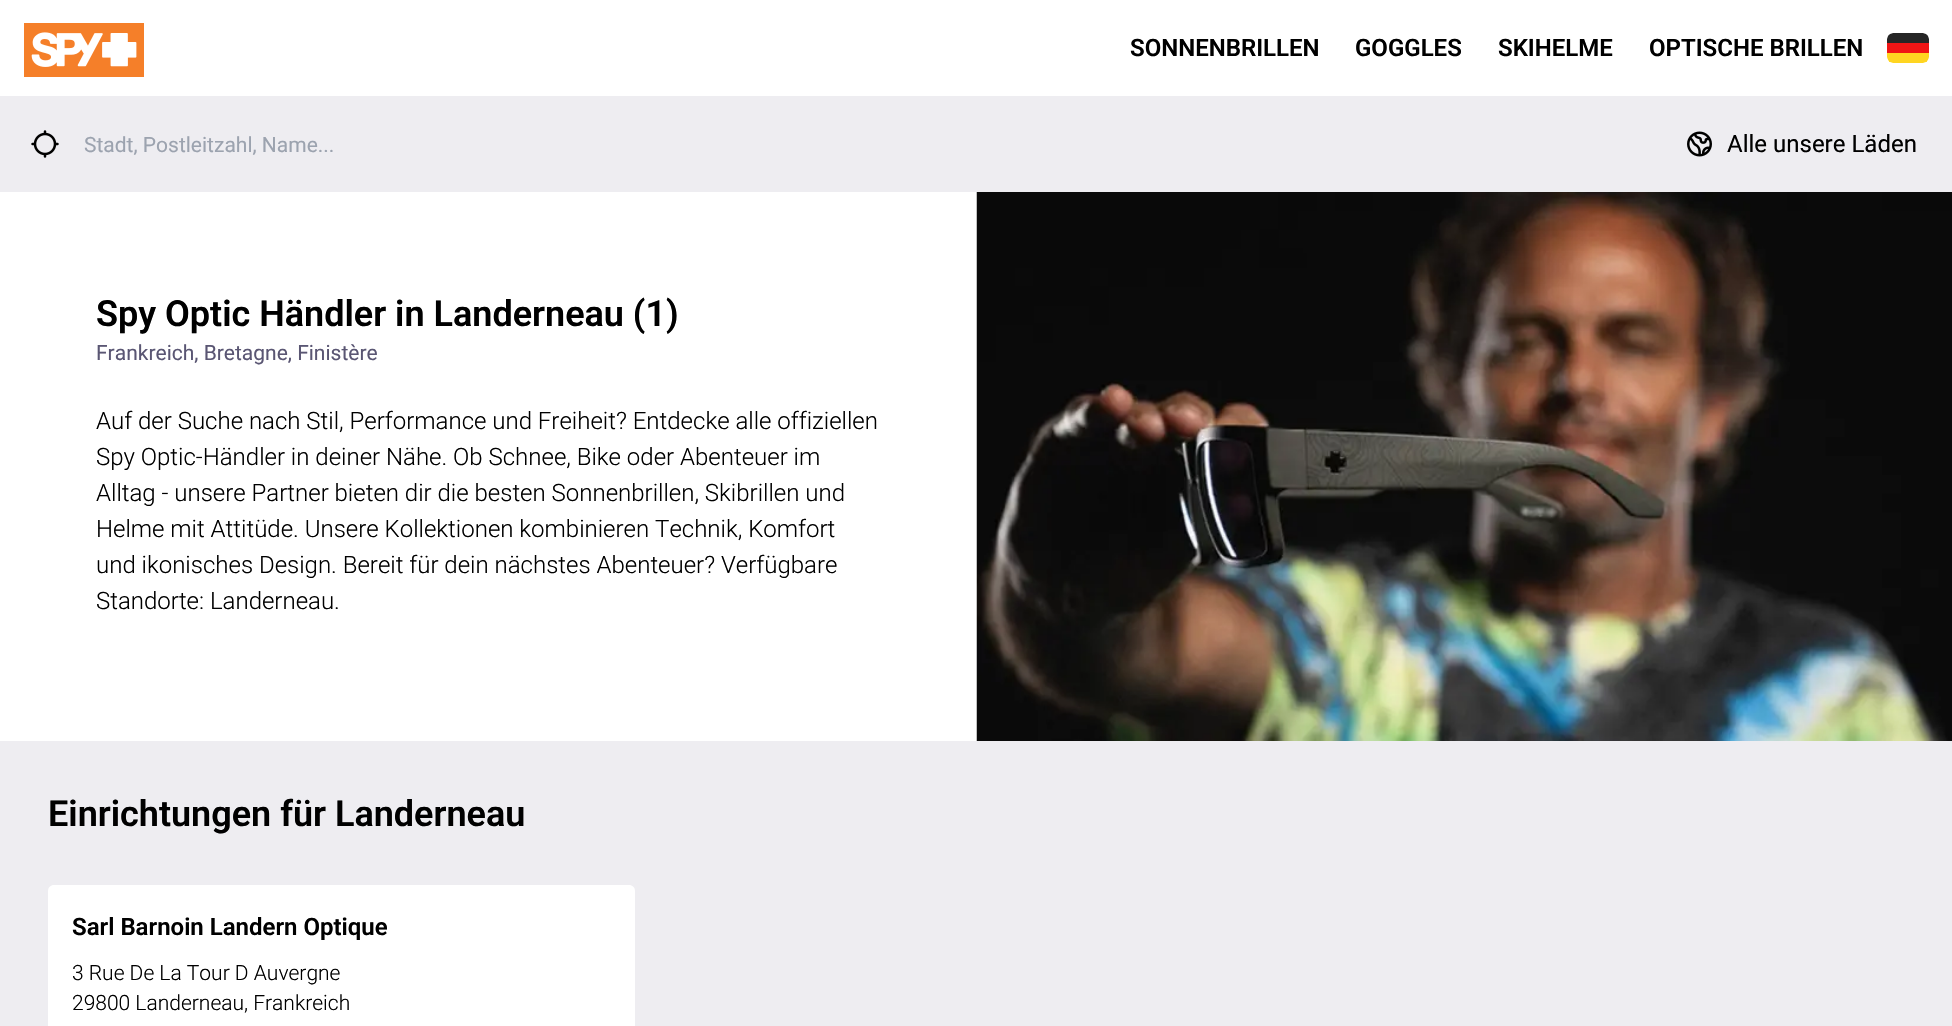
#include "include/core/SkBlurTypes.h"
#include "include/core/SkCanvas.h"
#include "include/core/SkData.h"
#include "include/core/SkFont.h"
#include "include/core/SkFontMgr.h"
#include "include/core/SkImage.h"
#include "include/core/SkMaskFilter.h"
#include "include/core/SkPaint.h"
#include "include/core/SkPathBuilder.h"
#include "include/core/SkTextBlob.h"
#include "include/effects/SkDashPathEffect.h"
#include "include/effects/SkGradientShader.h"
#include "include/utils/SkParsePath.h"

extern sk_sp<SkFontMgr> fontMgr;

static SkFont font(const char* family, int weight, float size, bool italic = false) {
    SkFontStyle style(weight, SkFontStyle::kNormal_Width,
        italic ? SkFontStyle::kItalic_Slant : SkFontStyle::kUpright_Slant);
    SkFont result(fontMgr->matchFamilyStyle(family, style), size);
    result.setSubpixel(true);
    return result;
}

static void drawLabel(SkCanvas* canvas, const char* s, float x, float y, const SkFont& font, SkColor color) {
    SkPaint ink(SkColor4f::FromColor(color));
    ink.setAntiAlias(true);
    canvas->drawString(s, x, y, font, ink);
}

static void fillRect(SkCanvas* canvas, float x, float y, float w, float h, SkColor color) {
    SkPaint ink(SkColor4f::FromColor(color));
    ink.setAntiAlias(true);
    canvas->drawRect(SkRect::MakeXYWH(x, y, w, h), ink);
}

static void drawPhoto(SkCanvas* canvas, const char* path, float x, float y, float w, float h) {
    auto image = SkImages::DeferredFromEncodedData(SkData::MakeFromFileName(path));
    canvas->drawImageRect(image, SkRect::MakeXYWH(x, y, w, h), SkSamplingOptions());
}

static SkPath parsePath(const char* data, bool evenOdd = false) {
    SkPath result = *SkParsePath::FromSVGString(data);
    if (evenOdd) result.setFillType(SkPathFillType::kEvenOdd);
    return result;
}

void draw(SkCanvas* canvas) {
    SkPaint paint;
    paint.setAntiAlias(true);
    canvas->clear(0xFFFFFFFF);
    drawPhoto(canvas, "assets/img1.png", 24, 23, 120, 54);
    SkFont font1 = font("Roboto", 600, 24);
    drawLabel(canvas, "SONNENBRILLEN", 1130, 56, font1, 0xFF000000);
    drawLabel(canvas, "GOGGLES", 1355, 56, font1, 0xFF000000);
    drawLabel(canvas, "SKIHELME", 1498, 56, font1, 0xFF000000);
    drawLabel(canvas, "OPTISCHE BRILLEN", 1649, 56, font1, 0xFF000000);
    drawPhoto(canvas, "assets/img2.png", 1887, 33, 42, 30);
    fillRect(canvas, 0, 96, 1952, 96, 0xFFEEEDF1);
    drawPhoto(canvas, "assets/img3.png", 31, 130, 28, 28);
    SkFont font2 = font("Roboto", 400, 21);
    drawLabel(canvas, "Stadt, Postleitzahl, Name...", 84, 152, font2, 0xFF9CA3AF);
    drawPhoto(canvas, "assets/img4.png", 1687, 131, 25, 26);
    SkFont font3 = font("Roboto", 400, 24);
    drawLabel(canvas, "Alle unsere Läden", 1727, 152, font3, 0xFF000000);
    SkFont font4 = font("Roboto", 600, 36);
    drawLabel(canvas, "Spy Optic Händler in Landerneau (1)", 96, 326, font4, 0xFF000000);
    drawLabel(canvas, "Frankreich, Bretagne, Finistère", 96, 360, font2, 0xFF5A5673);
    SkFont font5 = font("Roboto", 300, 24);
    drawLabel(canvas, "Auf der Suche nach Stil, Performance und Freiheit? Entdecke alle offiziellen", 96, 429, font5, 0xFF000000);
    drawLabel(canvas, "Spy Optic-Händler in deiner Nähe. Ob Schnee, Bike oder Abenteuer im", 96, 465, font5, 0xFF000000);
    drawLabel(canvas, "Alltag - unsere Partner bieten dir die besten Sonnenbrillen, Skibrillen und", 96, 501, font5, 0xFF000000);
    drawLabel(canvas, "Helme mit Attitüde. Unsere Kollektionen kombinieren Technik, Komfort", 96, 537, font5, 0xFF000000);
    drawLabel(canvas, "und ikonisches Design. Bereit für dein nächstes Abenteuer? Verfügbare", 96, 573, font5, 0xFF000000);
    drawLabel(canvas, "Standorte: Landerneau.", 96, 609, font5, 0xFF000000);
    drawPhoto(canvas, "assets/img5.png", 976, 192, 976, 549);
    fillRect(canvas, 0, 741, 1952, 285, 0xFFEEEDF1);
    drawLabel(canvas, "Einrichtungen für Landerneau", 48, 826, font4, 0xFF000000);
    paint.setColor(0xFFFFFFFF);
    canvas->drawPath(parsePath("M54 885H629C632.5 885 635 887.5 635 891V1026H48V891C48 887.5 50.5 885 54 885Z"), paint);
    drawLabel(canvas, "Sarl Barnoin Landern Optique", 72, 935, font1, 0xFF000000);
    SkFont font6 = font("Roboto", 300, 21);
    drawLabel(canvas, "3 Rue De La Tour D Auvergne", 72, 980, font6, 0xFF000000);
    drawLabel(canvas, "29800 Landerneau, Frankreich", 72, 1010, font6, 0xFF000000);
}
